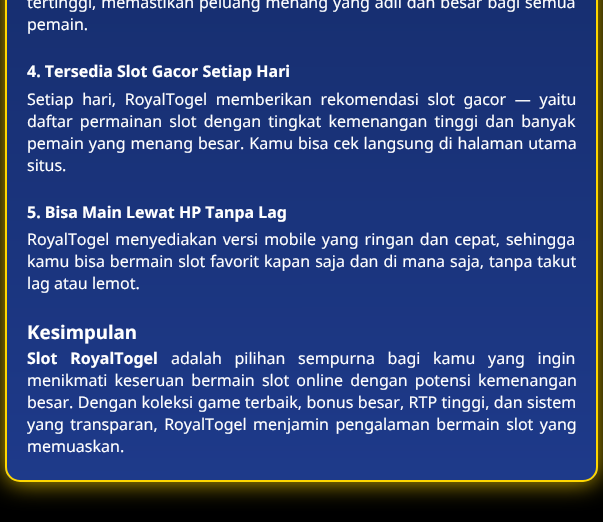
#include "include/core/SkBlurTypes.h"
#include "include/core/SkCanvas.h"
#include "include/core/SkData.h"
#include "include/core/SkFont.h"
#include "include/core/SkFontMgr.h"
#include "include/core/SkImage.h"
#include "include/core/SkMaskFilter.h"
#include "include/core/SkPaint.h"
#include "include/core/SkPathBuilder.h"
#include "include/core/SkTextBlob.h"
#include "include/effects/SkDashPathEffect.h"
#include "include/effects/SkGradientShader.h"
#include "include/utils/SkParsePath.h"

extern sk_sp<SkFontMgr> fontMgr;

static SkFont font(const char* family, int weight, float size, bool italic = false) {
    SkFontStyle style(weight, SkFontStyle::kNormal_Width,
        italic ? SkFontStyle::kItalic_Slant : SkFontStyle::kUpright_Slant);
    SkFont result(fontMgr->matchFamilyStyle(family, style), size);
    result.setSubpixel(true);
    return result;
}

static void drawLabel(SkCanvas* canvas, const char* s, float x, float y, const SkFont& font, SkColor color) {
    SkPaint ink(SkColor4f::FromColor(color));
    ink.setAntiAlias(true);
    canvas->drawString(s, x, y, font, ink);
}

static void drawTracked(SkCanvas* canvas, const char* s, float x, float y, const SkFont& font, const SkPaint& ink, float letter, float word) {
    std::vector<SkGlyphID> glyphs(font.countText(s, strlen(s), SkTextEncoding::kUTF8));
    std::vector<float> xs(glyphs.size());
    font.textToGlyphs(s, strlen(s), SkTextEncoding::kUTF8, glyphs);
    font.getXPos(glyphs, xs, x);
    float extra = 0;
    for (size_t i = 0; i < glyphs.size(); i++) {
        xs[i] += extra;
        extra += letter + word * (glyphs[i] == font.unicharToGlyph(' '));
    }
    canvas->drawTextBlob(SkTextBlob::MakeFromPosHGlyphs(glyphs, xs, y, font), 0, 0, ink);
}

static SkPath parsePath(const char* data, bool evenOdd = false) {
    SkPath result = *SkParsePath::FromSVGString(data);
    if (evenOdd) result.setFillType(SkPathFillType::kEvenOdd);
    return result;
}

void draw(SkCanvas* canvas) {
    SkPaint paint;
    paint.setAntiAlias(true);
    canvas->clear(0xFF000000);
    paint.setColor(0xCCFFD700);
    paint.setMaskFilter(SkMaskFilter::MakeBlur(kNormal_SkBlurStyle, 12.5f));
    canvas->drawRoundRect(SkRect::MakeXYWH(5, -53, 593, 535), 15, 15, paint);
    paint.setMaskFilter(nullptr);
    canvas->save();
    canvas->clipPath(parsePath("M20-695H583C591.5-695 598-688.5 598-680V467C598 475.5 591.5 482 583 482H20C11.5 482 5 475.5 5 467V-680C5-688.5 11.5-695 20-695Z"), true);
    {
        const SkColor colors[] = {0xFF0D1F4D, 0xFF1E3A8A};
        const float stops[] = {0, 1};
        const SkPoint ends[] = {{301, -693}, {302, 480}};
        paint.setShader(SkGradientShader::MakeLinear(ends, colors, stops, 2, SkTileMode::kClamp));
        paint.setAlpha(255);
    }
    canvas->drawRect(SkRect::MakeXYWH(5, 0, 593, 480), paint);
    canvas->restore();
    paint.setStroke(true);
    paint.setStrokeWidth(2);
    paint.setShader(nullptr);
    paint.setColor(0xFFFFD700);
    canvas->drawRoundRect(SkRect::MakeXYWH(6, -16, 591, 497), 14, 14, paint);
    SkFont font1 = font("Noto Sans", 400, 16);
    paint.setStroke(false);
    paint.setColor(0xFFFFFFFF);
    drawTracked(canvas, "tertinggi, memastikan peluang menang yang adil dan besar bagi semua", 27, 8, font1, paint, 0, 0.75f);
    drawLabel(canvas, "pemain.", 27, 30, font1, 0xFFFFFFFF);
    SkFont font2 = font("Noto Sans", 700, 16);
    drawLabel(canvas, "4. Tersedia Slot Gacor Setiap Hari", 27, 77, font2, 0xFFFFFFFF);
    drawTracked(canvas, "Setiap hari, RoyalTogel memberikan rekomendasi slot gacor — yaitu", 27, 105, font1, paint, 0, 4.5f);
    drawTracked(canvas, "daftar permainan slot dengan tingkat kemenangan tinggi dan banyak", 27, 127, font1, paint, 0, 3);
    drawTracked(canvas, "pemain yang menang besar. Kamu bisa cek langsung di halaman utama", 27, 149, font1, paint, 0, 0.75f);
    drawLabel(canvas, "situs.", 27, 171, font1, 0xFFFFFFFF);
    drawLabel(canvas, "5. Bisa Main Lewat HP Tanpa Lag", 27, 218, font2, 0xFFFFFFFF);
    drawTracked(canvas, "RoyalTogel menyediakan versi mobile yang ringan dan cepat, sehingga", 27, 245, font1, paint, 0, 1.75f);
    drawTracked(canvas, "kamu bisa bermain slot favorit kapan saja dan di mana saja, tanpa takut", 27, 267, font1, paint, 0, 0.75f);
    drawLabel(canvas, "lag atau lemot.", 27, 289, font1, 0xFFFFFFFF);
    SkFont font3 = font("Noto Sans", 700, 18.75f);
    drawLabel(canvas, "Kesimpulan", 27, 339, font3, 0xFFFFFFFF);
    drawTracked(canvas, "Slot RoyalTogel", 27, 364, font2, paint, 0, 8.5f);
    drawTracked(canvas, "adalah pilihan sempurna bagi kamu yang ingin", 171, 364, font1, paint, 0, 8.5f);
    drawTracked(canvas, "menikmati keseruan bermain slot online dengan potensi kemenangan", 27, 386, font1, paint, 0, 3);
    drawTracked(canvas, "besar. Dengan koleksi game terbaik, bonus besar, RTP tinggi, dan sistem", 27, 408, font1, paint, 0, 0.25f);
    drawTracked(canvas, "yang transparan, RoyalTogel menjamin pengalaman bermain slot yang", 27, 430, font1, paint, 0, 2.25f);
    drawLabel(canvas, "memuaskan.", 27, 452, font1, 0xFFFFFFFF);
}
